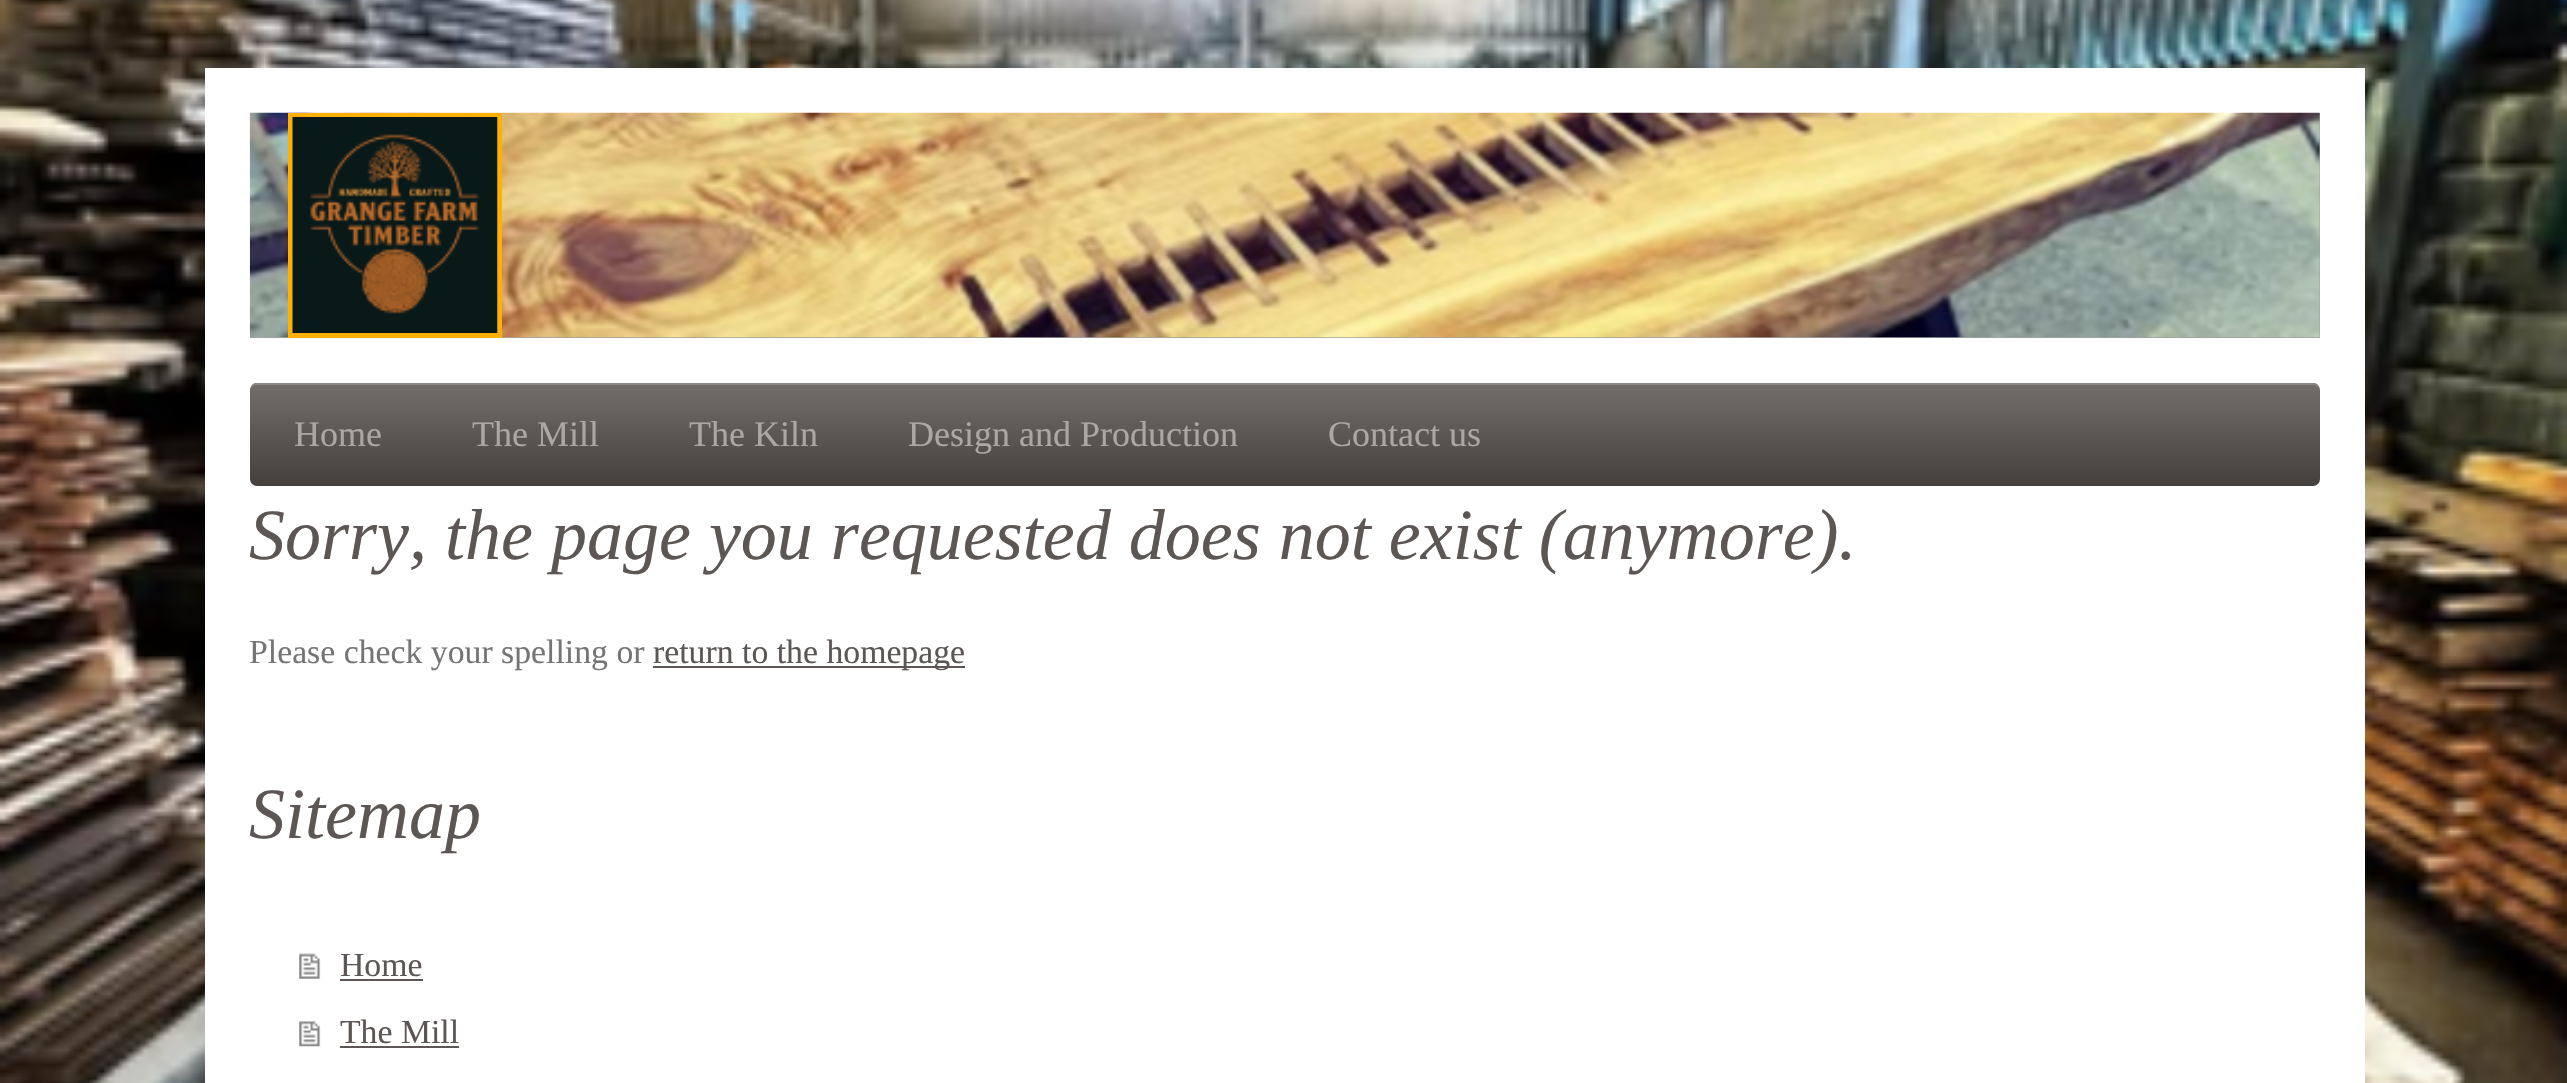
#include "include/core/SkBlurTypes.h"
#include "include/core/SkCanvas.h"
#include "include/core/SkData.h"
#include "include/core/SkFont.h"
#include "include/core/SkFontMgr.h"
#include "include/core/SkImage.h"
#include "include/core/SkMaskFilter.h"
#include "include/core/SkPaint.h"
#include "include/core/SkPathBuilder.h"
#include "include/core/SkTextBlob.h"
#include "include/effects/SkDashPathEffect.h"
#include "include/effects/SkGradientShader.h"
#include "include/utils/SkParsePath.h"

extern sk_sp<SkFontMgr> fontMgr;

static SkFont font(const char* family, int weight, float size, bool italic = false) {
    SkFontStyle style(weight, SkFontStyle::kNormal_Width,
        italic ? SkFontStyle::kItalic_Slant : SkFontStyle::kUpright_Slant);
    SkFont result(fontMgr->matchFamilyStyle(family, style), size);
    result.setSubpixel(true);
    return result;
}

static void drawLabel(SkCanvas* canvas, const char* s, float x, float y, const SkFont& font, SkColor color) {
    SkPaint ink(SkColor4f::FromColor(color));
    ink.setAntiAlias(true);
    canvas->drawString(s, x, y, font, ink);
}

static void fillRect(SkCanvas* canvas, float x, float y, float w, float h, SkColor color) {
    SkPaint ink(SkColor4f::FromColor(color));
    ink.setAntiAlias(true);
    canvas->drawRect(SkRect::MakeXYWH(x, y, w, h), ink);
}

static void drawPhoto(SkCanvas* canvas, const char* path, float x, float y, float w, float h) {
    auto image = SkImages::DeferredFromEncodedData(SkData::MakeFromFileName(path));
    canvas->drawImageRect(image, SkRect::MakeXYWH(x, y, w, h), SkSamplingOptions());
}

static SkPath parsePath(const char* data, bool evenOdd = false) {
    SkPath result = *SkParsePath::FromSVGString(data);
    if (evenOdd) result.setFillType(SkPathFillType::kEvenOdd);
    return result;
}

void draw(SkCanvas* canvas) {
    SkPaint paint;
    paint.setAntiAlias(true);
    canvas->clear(0xFFFFFFFF);
    drawPhoto(canvas, "assets/img1.png", 0, 0, 2567, 1083);
    fillRect(canvas, 205, 68, 2160, 1015, 0xFFFFFFFF);
    fillRect(canvas, 250, 113, 2070, 225, 0xFFA0A0A0);
    drawPhoto(canvas, "assets/img2.png", 249, 112, 2071, 226);
    paint.setStroke(true);
    paint.setStrokeWidth(5);
    paint.setColor(0xFFFEB006);
    canvas->drawRect(SkRect::MakeXYWH(290.5f, 115.5f, 209, 220), paint);
    drawPhoto(canvas, "assets/img3.png", 292, 117, 206, 216);
    paint.setStroke(false);
    {
        const SkColor colors[] = {0xFF746E6A, 0xFF44403E};
        const float stops[] = {0, 1};
        const SkPoint ends[] = {{250, 383}, {250, 486}};
        paint.setShader(SkGradientShader::MakeLinear(ends, colors, stops, 2, SkTileMode::kClamp));
        paint.setAlpha(255);
    }
    canvas->drawRoundRect(SkRect::MakeXYWH(250, 383, 2070, 103), 7, 7, paint);
    paint.setShader(nullptr);
    paint.setColor(0xFF595452);
    canvas->drawPath(parsePath("M256 385H2313C2317 385 2320 388 2320 392C2320 388 2318 383 2313 383H257C252 383 250 388 250 392C250 388 253 385 256 385Z"), paint);
    paint.setColor(0x4DFFFFFF);
    canvas->drawPath(parsePath("M256 385H2313C2317 385 2320 388 2320 392C2320 388 2318 383 2313 383H257C252 383 250 388 250 392C250 388 253 385 256 385Z"), paint);
    SkFont font1 = font("Liberation Serif", 400, 36);
    drawLabel(canvas, "Home", 294, 446, font1, 0xFFACA7A5);
    drawLabel(canvas, "The Mill", 472, 446, font1, 0xFFACA7A5);
    drawLabel(canvas, "The Kiln", 689, 446, font1, 0xFFACA7A5);
    drawLabel(canvas, "Design and Production", 908, 446, font1, 0xFFACA7A5);
    drawLabel(canvas, "Contact us", 1328, 446, font1, 0xFFACA7A5);
    SkFont font2 = font("Liberation Serif", 400, 72, true);
    drawLabel(canvas, "Sorry, the page you requested does not exist (anymore).", 249, 559, font2, 0xFF5C5754);
    SkFont font3 = font("Liberation Serif", 400, 33.75f);
    drawLabel(canvas, "Please check your spelling or", 249, 663, font3, 0xFF757575);
    fillRect(canvas, 653, 666, 312, 2, 0xFF5C5754);
    drawLabel(canvas, "return to the homepage", 653, 663, font3, 0xFF5C5754);
    drawLabel(canvas, "Sitemap", 249, 838, font2, 0xFF5C5754);
    drawPhoto(canvas, "assets/img4.png", 299, 953, 22, 26);
    drawLabel(canvas, "Home", 340, 976, font3, 0xFF5C5754);
    fillRect(canvas, 340, 979, 83, 2, 0xFF5C5754);
    drawPhoto(canvas, "assets/img5.png", 299, 1021, 22, 26);
    drawLabel(canvas, "The Mill", 340, 1043, font3, 0xFF5C5754);
    fillRect(canvas, 340, 1046, 119, 2, 0xFF5C5754);
}
